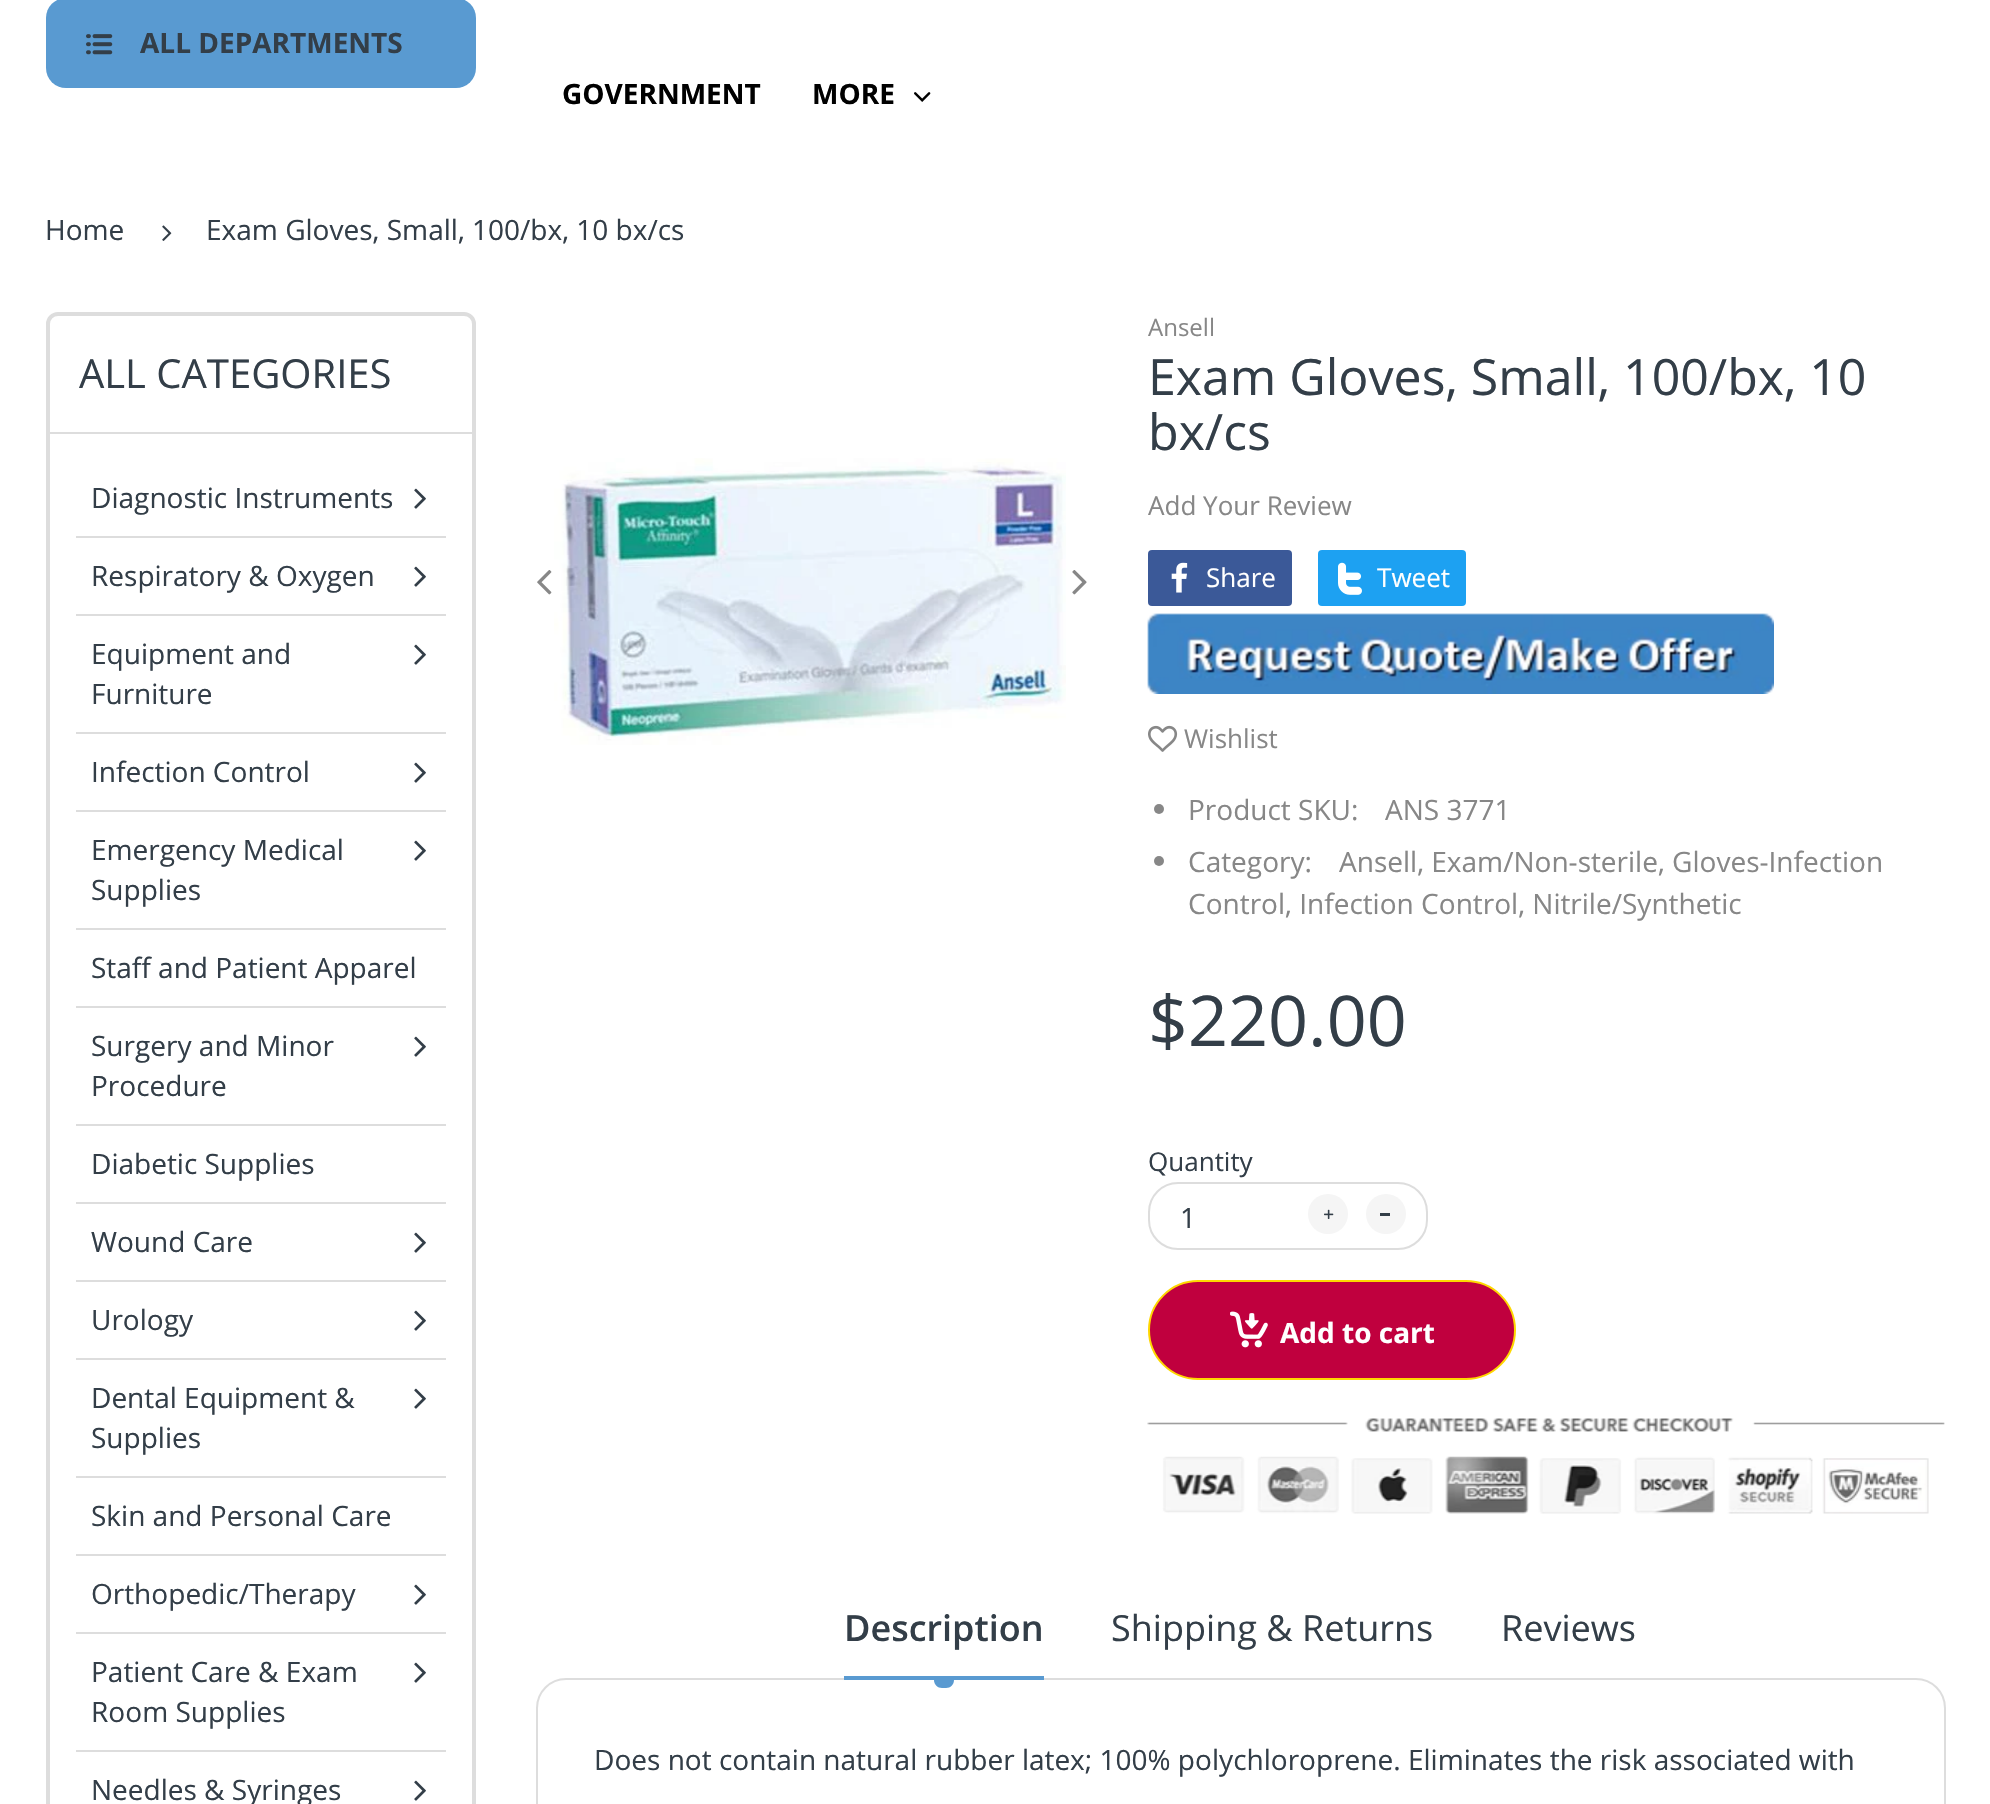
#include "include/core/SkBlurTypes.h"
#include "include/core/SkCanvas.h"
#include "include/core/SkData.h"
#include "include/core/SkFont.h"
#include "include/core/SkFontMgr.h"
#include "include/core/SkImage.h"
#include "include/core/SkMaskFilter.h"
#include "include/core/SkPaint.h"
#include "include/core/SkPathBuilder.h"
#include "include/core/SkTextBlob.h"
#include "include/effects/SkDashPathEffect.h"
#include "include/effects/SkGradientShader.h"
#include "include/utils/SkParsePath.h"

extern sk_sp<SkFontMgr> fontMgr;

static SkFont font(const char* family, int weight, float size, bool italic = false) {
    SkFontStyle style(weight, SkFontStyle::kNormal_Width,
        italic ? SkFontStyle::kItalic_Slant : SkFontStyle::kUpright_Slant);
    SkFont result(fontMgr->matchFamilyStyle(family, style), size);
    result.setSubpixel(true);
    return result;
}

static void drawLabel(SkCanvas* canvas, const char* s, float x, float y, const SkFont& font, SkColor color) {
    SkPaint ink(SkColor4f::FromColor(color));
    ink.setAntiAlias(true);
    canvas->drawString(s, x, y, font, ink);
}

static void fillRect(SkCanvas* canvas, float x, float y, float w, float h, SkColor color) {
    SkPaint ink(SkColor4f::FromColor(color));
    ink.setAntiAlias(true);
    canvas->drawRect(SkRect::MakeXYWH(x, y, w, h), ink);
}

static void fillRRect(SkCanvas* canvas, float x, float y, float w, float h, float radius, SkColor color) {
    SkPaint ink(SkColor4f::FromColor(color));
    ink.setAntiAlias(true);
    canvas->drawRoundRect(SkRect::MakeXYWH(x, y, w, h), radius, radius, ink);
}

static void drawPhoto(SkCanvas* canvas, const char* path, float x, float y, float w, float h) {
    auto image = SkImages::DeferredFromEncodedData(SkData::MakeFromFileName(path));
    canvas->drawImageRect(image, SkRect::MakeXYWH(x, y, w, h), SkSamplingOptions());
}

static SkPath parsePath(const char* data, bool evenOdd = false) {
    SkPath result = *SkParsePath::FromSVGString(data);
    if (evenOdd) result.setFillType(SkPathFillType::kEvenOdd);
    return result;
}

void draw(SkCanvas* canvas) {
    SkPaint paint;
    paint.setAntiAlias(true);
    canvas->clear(0xFFFFFFFF);
    fillRRect(canvas, 46, -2, 430, 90, 20, 0xFF599AD1);
    drawPhoto(canvas, "assets/img1.png", 86, 34, 27, 21);
    SkFont font1 = font("Open Sans", 700, 28);
    drawLabel(canvas, "ALL DEPARTMENTS", 140, 53, font1, 0xFF333E48);
    drawLabel(canvas, "GOVERNMENT", 562, 104, font1, 0xFF000000);
    drawLabel(canvas, "MORE", 812, 104, font1, 0xFF000000);
    drawPhoto(canvas, "assets/img2.png", 914, 92, 17, 10);
    SkFont font2 = font("Open Sans", 400, 28);
    drawLabel(canvas, "Home", 45, 240, font2, 0xFF333E48);
    drawPhoto(canvas, "assets/img3.png", 162, 225, 10, 16);
    drawLabel(canvas, "Exam Gloves, Small, 100/bx, 10 bx/cs", 206, 240, font2, 0xFF333E48);
    paint.setStroke(true);
    paint.setStrokeWidth(4);
    paint.setColor(0xFFDDDDDD);
    canvas->drawRoundRect(SkRect::MakeXYWH(48, 314, 426, 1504), 10, 10, paint);
    fillRect(canvas, 50, 432, 422, 2, 0xFFDDDDDD);
    SkFont font3 = font("Open Sans", 400, 40);
    drawLabel(canvas, "ALL CATEGORIES", 79, 388, font3, 0xFF333E48);
    fillRect(canvas, 76, 536, 370, 2, 0xFFDDDDDD);
    drawLabel(canvas, "Diagnostic Instruments", 91, 508, font2, 0xFF333E48);
    drawPhoto(canvas, "assets/img4.png", 414, 488, 12, 21);
    fillRect(canvas, 76, 614, 370, 2, 0xFFDDDDDD);
    drawLabel(canvas, "Respiratory & Oxygen", 91, 586, font2, 0xFF333E48);
    drawPhoto(canvas, "assets/img4.png", 414, 566, 12, 21);
    fillRect(canvas, 76, 732, 370, 2, 0xFFDDDDDD);
    drawLabel(canvas, "Equipment and", 91, 664, font2, 0xFF333E48);
    drawLabel(canvas, "Furniture", 91, 704, font2, 0xFF333E48);
    drawPhoto(canvas, "assets/img4.png", 414, 644, 12, 21);
    fillRect(canvas, 76, 810, 370, 2, 0xFFDDDDDD);
    drawLabel(canvas, "Infection Control", 91, 782, font2, 0xFF333E48);
    drawPhoto(canvas, "assets/img4.png", 414, 762, 12, 21);
    fillRect(canvas, 76, 928, 370, 2, 0xFFDDDDDD);
    drawLabel(canvas, "Emergency Medical", 91, 860, font2, 0xFF333E48);
    drawLabel(canvas, "Supplies", 91, 900, font2, 0xFF333E48);
    drawPhoto(canvas, "assets/img4.png", 414, 840, 12, 21);
    fillRect(canvas, 76, 1006, 370, 2, 0xFFDDDDDD);
    drawLabel(canvas, "Staff and Patient Apparel", 91, 978, font2, 0xFF333E48);
    fillRect(canvas, 76, 1124, 370, 2, 0xFFDDDDDD);
    drawLabel(canvas, "Surgery and Minor", 91, 1056, font2, 0xFF333E48);
    drawLabel(canvas, "Procedure", 91, 1096, font2, 0xFF333E48);
    drawPhoto(canvas, "assets/img4.png", 414, 1036, 12, 21);
    fillRect(canvas, 76, 1202, 370, 2, 0xFFDDDDDD);
    drawLabel(canvas, "Diabetic Supplies", 91, 1174, font2, 0xFF333E48);
    fillRect(canvas, 76, 1280, 370, 2, 0xFFDDDDDD);
    drawLabel(canvas, "Wound Care", 91, 1252, font2, 0xFF333E48);
    drawPhoto(canvas, "assets/img4.png", 414, 1232, 12, 21);
    fillRect(canvas, 76, 1358, 370, 2, 0xFFDDDDDD);
    drawLabel(canvas, "Urology", 91, 1330, font2, 0xFF333E48);
    drawPhoto(canvas, "assets/img4.png", 414, 1310, 12, 21);
    fillRect(canvas, 76, 1476, 370, 2, 0xFFDDDDDD);
    drawLabel(canvas, "Dental Equipment &", 91, 1408, font2, 0xFF333E48);
    drawLabel(canvas, "Supplies", 91, 1448, font2, 0xFF333E48);
    drawPhoto(canvas, "assets/img4.png", 414, 1388, 12, 21);
    fillRect(canvas, 76, 1554, 370, 2, 0xFFDDDDDD);
    drawLabel(canvas, "Skin and Personal Care", 91, 1526, font2, 0xFF333E48);
    fillRect(canvas, 76, 1632, 370, 2, 0xFFDDDDDD);
    drawLabel(canvas, "Orthopedic/Therapy", 91, 1604, font2, 0xFF333E48);
    drawPhoto(canvas, "assets/img4.png", 414, 1584, 12, 21);
    fillRect(canvas, 76, 1750, 370, 2, 0xFFDDDDDD);
    drawLabel(canvas, "Patient Care & Exam", 91, 1682, font2, 0xFF333E48);
    drawLabel(canvas, "Room Supplies", 91, 1722, font2, 0xFF333E48);
    drawPhoto(canvas, "assets/img4.png", 414, 1662, 12, 21);
    drawLabel(canvas, "Needles & Syringes", 91, 1800, font2, 0xFF333E48);
    drawPhoto(canvas, "assets/img4.png", 414, 1780, 12, 21);
    drawPhoto(canvas, "assets/img5.png", 554, 458, 512, 287);
    drawPhoto(canvas, "assets/img6.png", 537, 570, 15, 25);
    drawPhoto(canvas, "assets/img7.png", 1072, 570, 15, 25);
    SkFont font4 = font("Open Sans", 400, 24);
    drawLabel(canvas, "Ansell", 1148, 336, font4, 0xFF878787);
    SkFont font5 = font("Open Sans", 400, 50);
    drawLabel(canvas, "Exam Gloves, Small, 100/bx, 10", 1148, 395, font5, 0xFF333E48);
    drawLabel(canvas, "bx/cs", 1148, 450, font5, 0xFF333E48);
    SkFont font6 = font("Open Sans", 400, 26);
    drawLabel(canvas, "Add Your Review", 1148, 515, font6, 0xFF878787);
    fillRRect(canvas, 1148, 550, 144, 56, 4, 0xFF3B5998);
    drawPhoto(canvas, "assets/img8.png", 1171, 562, 17, 31);
    drawLabel(canvas, "Share", 1206, 587, font6, 0xFFFFFFFF);
    fillRRect(canvas, 1318, 550, 148, 56, 4, 0xFF1DA1F2);
    drawPhoto(canvas, "assets/img9.png", 1338, 562, 24, 33);
    drawLabel(canvas, "Tweet", 1377, 587, font6, 0xFFFFFFFF);
    drawPhoto(canvas, "assets/img10.png", 1147, 613, 627, 81);
    drawPhoto(canvas, "assets/img11.png", 1148, 725, 30, 27);
    drawLabel(canvas, "Wishlist", 1184, 748, font6, 0xFF878787);
    paint.setStroke(false);
    paint.setColor(0xFF878787);
    canvas->drawCircle(1159, 809, 5, paint);
    drawLabel(canvas, "Product SKU:", 1188, 820, font2, 0xFF878787);
    drawLabel(canvas, "ANS 3771", 1385, 820, font2, 0xFF878787);
    canvas->drawCircle(1159, 861, 5, paint);
    drawLabel(canvas, "Category:", 1188, 872, font2, 0xFF878787);
    drawLabel(canvas, "Ansell, Exam/Non-sterile, Gloves-Infection", 1339, 872, font2, 0xFF878787);
    drawLabel(canvas, "Control, Infection Control, Nitrile/Synthetic", 1188, 914, font2, 0xFF878787);
    SkFont font7 = font("Open Sans", 400, 70);
    drawLabel(canvas, "$220.00", 1148, 1046, font7, 0xFF333E48);
    drawLabel(canvas, "Quantity", 1148, 1171, font6, 0xFF333E48);
    paint.setStroke(true);
    paint.setStrokeWidth(2);
    paint.setColor(0xFFDDDDDD);
    canvas->drawRoundRect(SkRect::MakeXYWH(1149, 1183, 278, 66), 29, 29, paint);
    drawLabel(canvas, "1", 1180, 1228, font2, 0xFF333E48);
    paint.setStroke(false);
    paint.setColor(0xFFF5F5F5);
    canvas->drawCircle(1328, 1214, 20, paint);
    drawPhoto(canvas, "assets/img12.png", 1324, 1209, 10, 10);
    canvas->drawCircle(1386, 1214, 20, paint);
    fillRect(canvas, 1380, 1213, 10, 3, 0xFF333E48);
    paint.setColor(0xFFC0003E);
    canvas->drawRoundRect(SkRect::MakeXYWH(1149, 1281, 366, 98), 49, 49, paint);
    paint.setStroke(true);
    paint.setColor(0xFFFED700);
    canvas->drawRoundRect(SkRect::MakeXYWH(1149, 1281, 366, 98), 49, 49, paint);
    drawPhoto(canvas, "assets/img13.png", 1230, 1311, 38, 37);
    drawLabel(canvas, "Add to cart", 1280, 1343, font1, 0xFFFFFFFF);
    drawPhoto(canvas, "assets/img14.png", 1147, 1418, 798, 96);
    SkFont font8 = font("Open Sans", 600, 36);
    drawLabel(canvas, "Description", 844, 1641, font8, 0xFF333E48);
    paint.setColor(0xFFDDDDDD);
    canvas->drawRoundRect(SkRect::MakeXYWH(537, 1679, 1408, 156), 29, 29, paint);
    fillRect(canvas, 844, 1676, 200, 4, 0xFF599AD1);
    paint.setStroke(false);
    paint.setColor(0xFF599AD1);
    canvas->drawPath(parsePath("M934 1680H954C954 1684.5 950.5 1688 946 1688H942C937.5 1688 934 1684.5 934 1680Z"), paint);
    SkFont font9 = font("Open Sans", 400, 36);
    drawLabel(canvas, "Shipping & Returns", 1111, 1641, font9, 0xFF333E48);
    drawLabel(canvas, "Reviews", 1501, 1641, font9, 0xFF333E48);
    drawLabel(canvas, "Does not contain natural rubber latex; 100% polychloroprene. Eliminates the risk associated with", 594, 1770, font2, 0xFF333E48);
}
